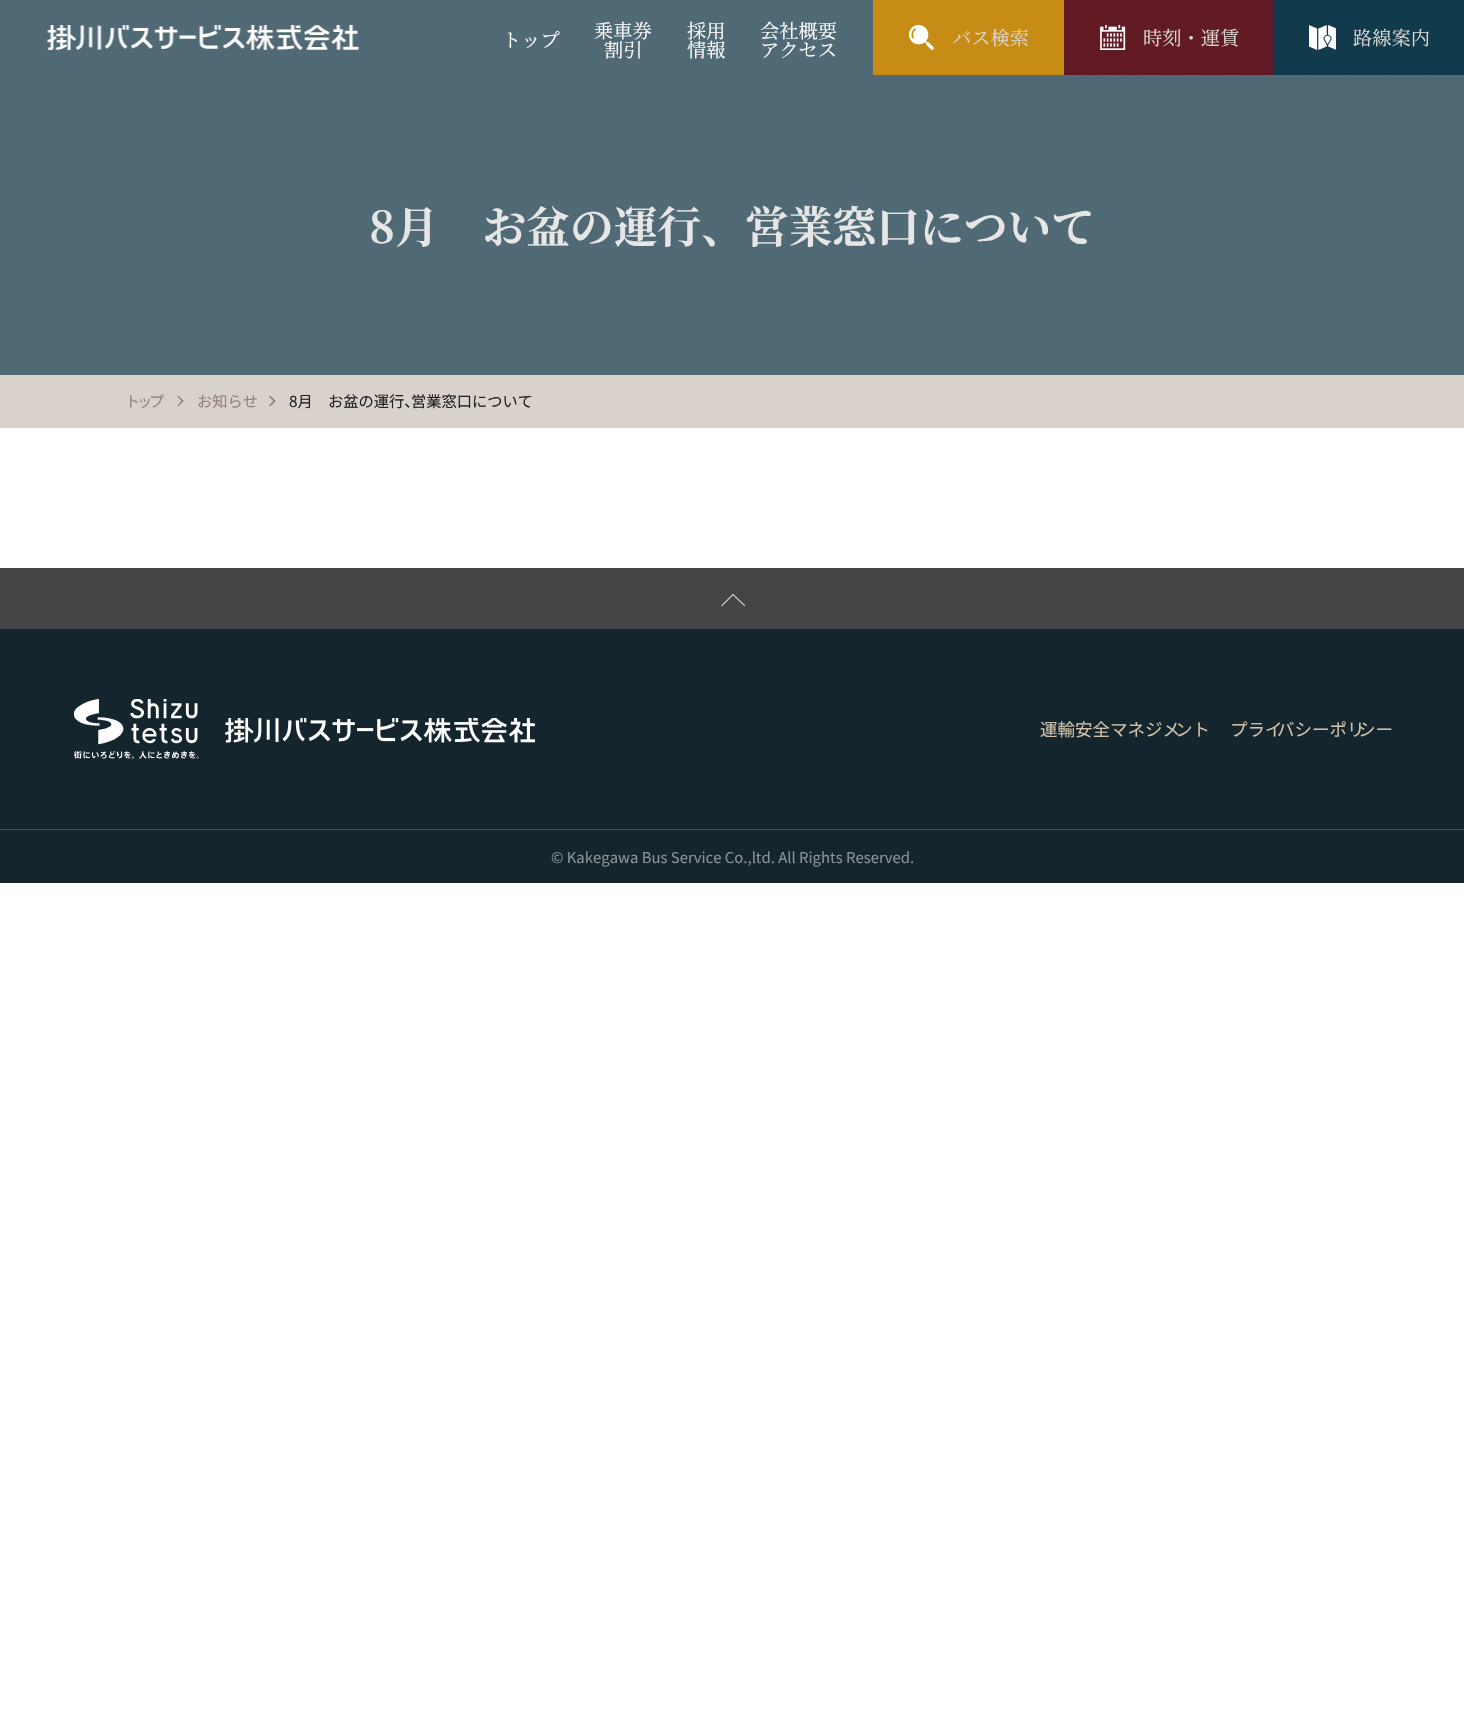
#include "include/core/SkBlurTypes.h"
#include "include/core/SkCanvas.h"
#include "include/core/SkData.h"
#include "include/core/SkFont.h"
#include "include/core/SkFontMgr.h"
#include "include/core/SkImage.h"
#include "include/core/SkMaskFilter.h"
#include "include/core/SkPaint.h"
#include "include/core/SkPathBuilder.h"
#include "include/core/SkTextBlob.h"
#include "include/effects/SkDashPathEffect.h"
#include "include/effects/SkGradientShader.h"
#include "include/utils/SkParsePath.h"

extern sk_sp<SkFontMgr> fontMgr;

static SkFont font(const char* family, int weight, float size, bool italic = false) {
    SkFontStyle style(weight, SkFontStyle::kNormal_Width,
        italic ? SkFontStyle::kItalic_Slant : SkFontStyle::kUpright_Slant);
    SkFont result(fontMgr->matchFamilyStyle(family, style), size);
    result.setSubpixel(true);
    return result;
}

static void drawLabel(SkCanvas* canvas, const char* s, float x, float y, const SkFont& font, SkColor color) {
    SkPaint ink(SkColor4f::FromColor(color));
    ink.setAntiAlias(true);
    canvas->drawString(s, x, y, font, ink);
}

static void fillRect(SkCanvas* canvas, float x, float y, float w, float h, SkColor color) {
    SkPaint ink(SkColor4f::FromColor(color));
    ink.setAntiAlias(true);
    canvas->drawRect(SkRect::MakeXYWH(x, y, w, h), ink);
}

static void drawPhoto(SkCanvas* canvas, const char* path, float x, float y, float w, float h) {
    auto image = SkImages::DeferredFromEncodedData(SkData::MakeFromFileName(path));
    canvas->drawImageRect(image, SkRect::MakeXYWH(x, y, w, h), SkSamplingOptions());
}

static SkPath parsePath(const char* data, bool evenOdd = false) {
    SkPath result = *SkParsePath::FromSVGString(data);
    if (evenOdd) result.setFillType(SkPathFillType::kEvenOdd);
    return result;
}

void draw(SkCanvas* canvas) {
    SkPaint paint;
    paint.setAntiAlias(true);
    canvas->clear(0xFFFFFFFF);
    fillRect(canvas, 0, 0, 1464, 375, 0xFF597582);
    SkFont font1 = font("Noto Serif JP", 700, 43.75f);
    drawLabel(canvas, "8月　お盆の運行、営業窓口について", 369, 243, font1, 0xFFFFFFFF);
    drawPhoto(canvas, "assets/img5.png", 0, 0, 1464, 375);
    drawPhoto(canvas, "assets/img1.png", 47, 25, 312, 25);
    SkFont font2 = font("Noto Serif JP", 400, 19.25f);
    drawLabel(canvas, "トップ", 502, 47, font2, 0xFFFFFFFF);
    drawLabel(canvas, "乗車券", 594, 38, font2, 0xFFFFFFFF);
    drawLabel(canvas, "割引", 604, 57, font2, 0xFFFFFFFF);
    drawLabel(canvas, "採用", 687, 38, font2, 0xFFFFFFFF);
    drawLabel(canvas, "情報", 687, 57, font2, 0xFFFFFFFF);
    drawLabel(canvas, "会社概要", 760, 38, font2, 0xFFFFFFFF);
    drawLabel(canvas, "アクセス", 760, 57, font2, 0xFFFFFFFF);
    fillRect(canvas, 873, 0, 191, 75, 0xFFC78C16);
    drawPhoto(canvas, "assets/img2.png", 909, 25, 25, 25);
    drawLabel(canvas, "バス検索", 952, 45, font2, 0xFFDDD8D4);
    fillRect(canvas, 1064, 0, 210, 75, 0xFF621B25);
    drawPhoto(canvas, "assets/img3.png", 1100, 25, 26, 25);
    drawLabel(canvas, "時刻・運賃", 1143, 45, font2, 0xFFDDD8D4);
    fillRect(canvas, 1274, 0, 190, 75, 0xFF123A4D);
    drawPhoto(canvas, "assets/img4.png", 1309, 25, 27, 25);
    drawLabel(canvas, "路線案内", 1353, 45, font2, 0xFFDDD8D4);
    fillRect(canvas, 0, 375, 1464, 53, 0xFFD9D2CB);
    SkFont font3 = font("Noto Sans JP", 400, 15.25f);
    drawLabel(canvas, "ト", 125, 407, font3, 0xFF928183);
    drawLabel(canvas, "ッ", 137, 407, font3, 0xFF928183);
    drawLabel(canvas, "プ", 149, 407, font3, 0xFF928183);
    paint.setColor(0xFF7D7A76);
    canvas->drawPath(parsePath("M178 395.5L183.5 401L182.5 402L177.5 396.5Z"), paint);
    canvas->drawPath(parsePath("M182.5 400L183.5 401L178 406.5L177.5 405.5Z"), paint);
    drawLabel(canvas, "お知らせ", 197, 407, font3, 0xFF928183);
    canvas->drawPath(parsePath("M270 395.5L275.5 401L274.5 402L269 396.5Z"), paint);
    canvas->drawPath(parsePath("M274.5 400L275.5 401L270 406.5L269 405.5Z"), paint);
    drawLabel(canvas, "8月　お盆の運行、", 289, 407, font3, 0xFF212121);
    drawLabel(canvas, "営業窓口について", 411, 407, font3, 0xFF212121);
    fillRect(canvas, 0, 629, 1464, 254, 0xFF15252E);
    fillRect(canvas, 0, 568, 1464, 61, 0xFF444446);
    paint.setStroke(true);
    paint.setStrokeWidth(1.2f);
    paint.setStrokeCap(SkPaint::kRound_Cap);
    paint.setStrokeJoin(SkPaint::kRound_Join);
    paint.setColor(0xFFCEC1A7);
    canvas->drawPath(parsePath("M722 605.5L733 594.5L744.5 605.5"), paint);
    drawPhoto(canvas, "assets/img6.png", 74, 699, 125, 60);
    drawPhoto(canvas, "assets/img7.png", 225, 718, 310, 25);
    SkFont font4 = font("Noto Sans JP", 400, 17.5f);
    drawLabel(canvas, "運輸安全マネジメ", 1040, 736, font4, 0xFFCEC1A7);
    drawLabel(canvas, "ント", 1175, 736, font4, 0xFFCEC1A7);
    drawLabel(canvas, "プライ", 1230, 736, font4, 0xFFCEC1A7);
    drawLabel(canvas, "バシーポリ", 1277, 736, font4, 0xFFCEC1A7);
    drawLabel(canvas, "シー", 1358, 736, font4, 0xFFCEC1A7);
    fillRect(canvas, 0, 829, 1464, 1, 0xFF445158);
    SkFont font5 = font("Noto Sans JP", 400, 14.9f);
    drawLabel(canvas, "© Kakegawa Bus Service Co.,ltd. All Rights Reserved.", 551, 863, font5, 0xFF8A9297);
}
